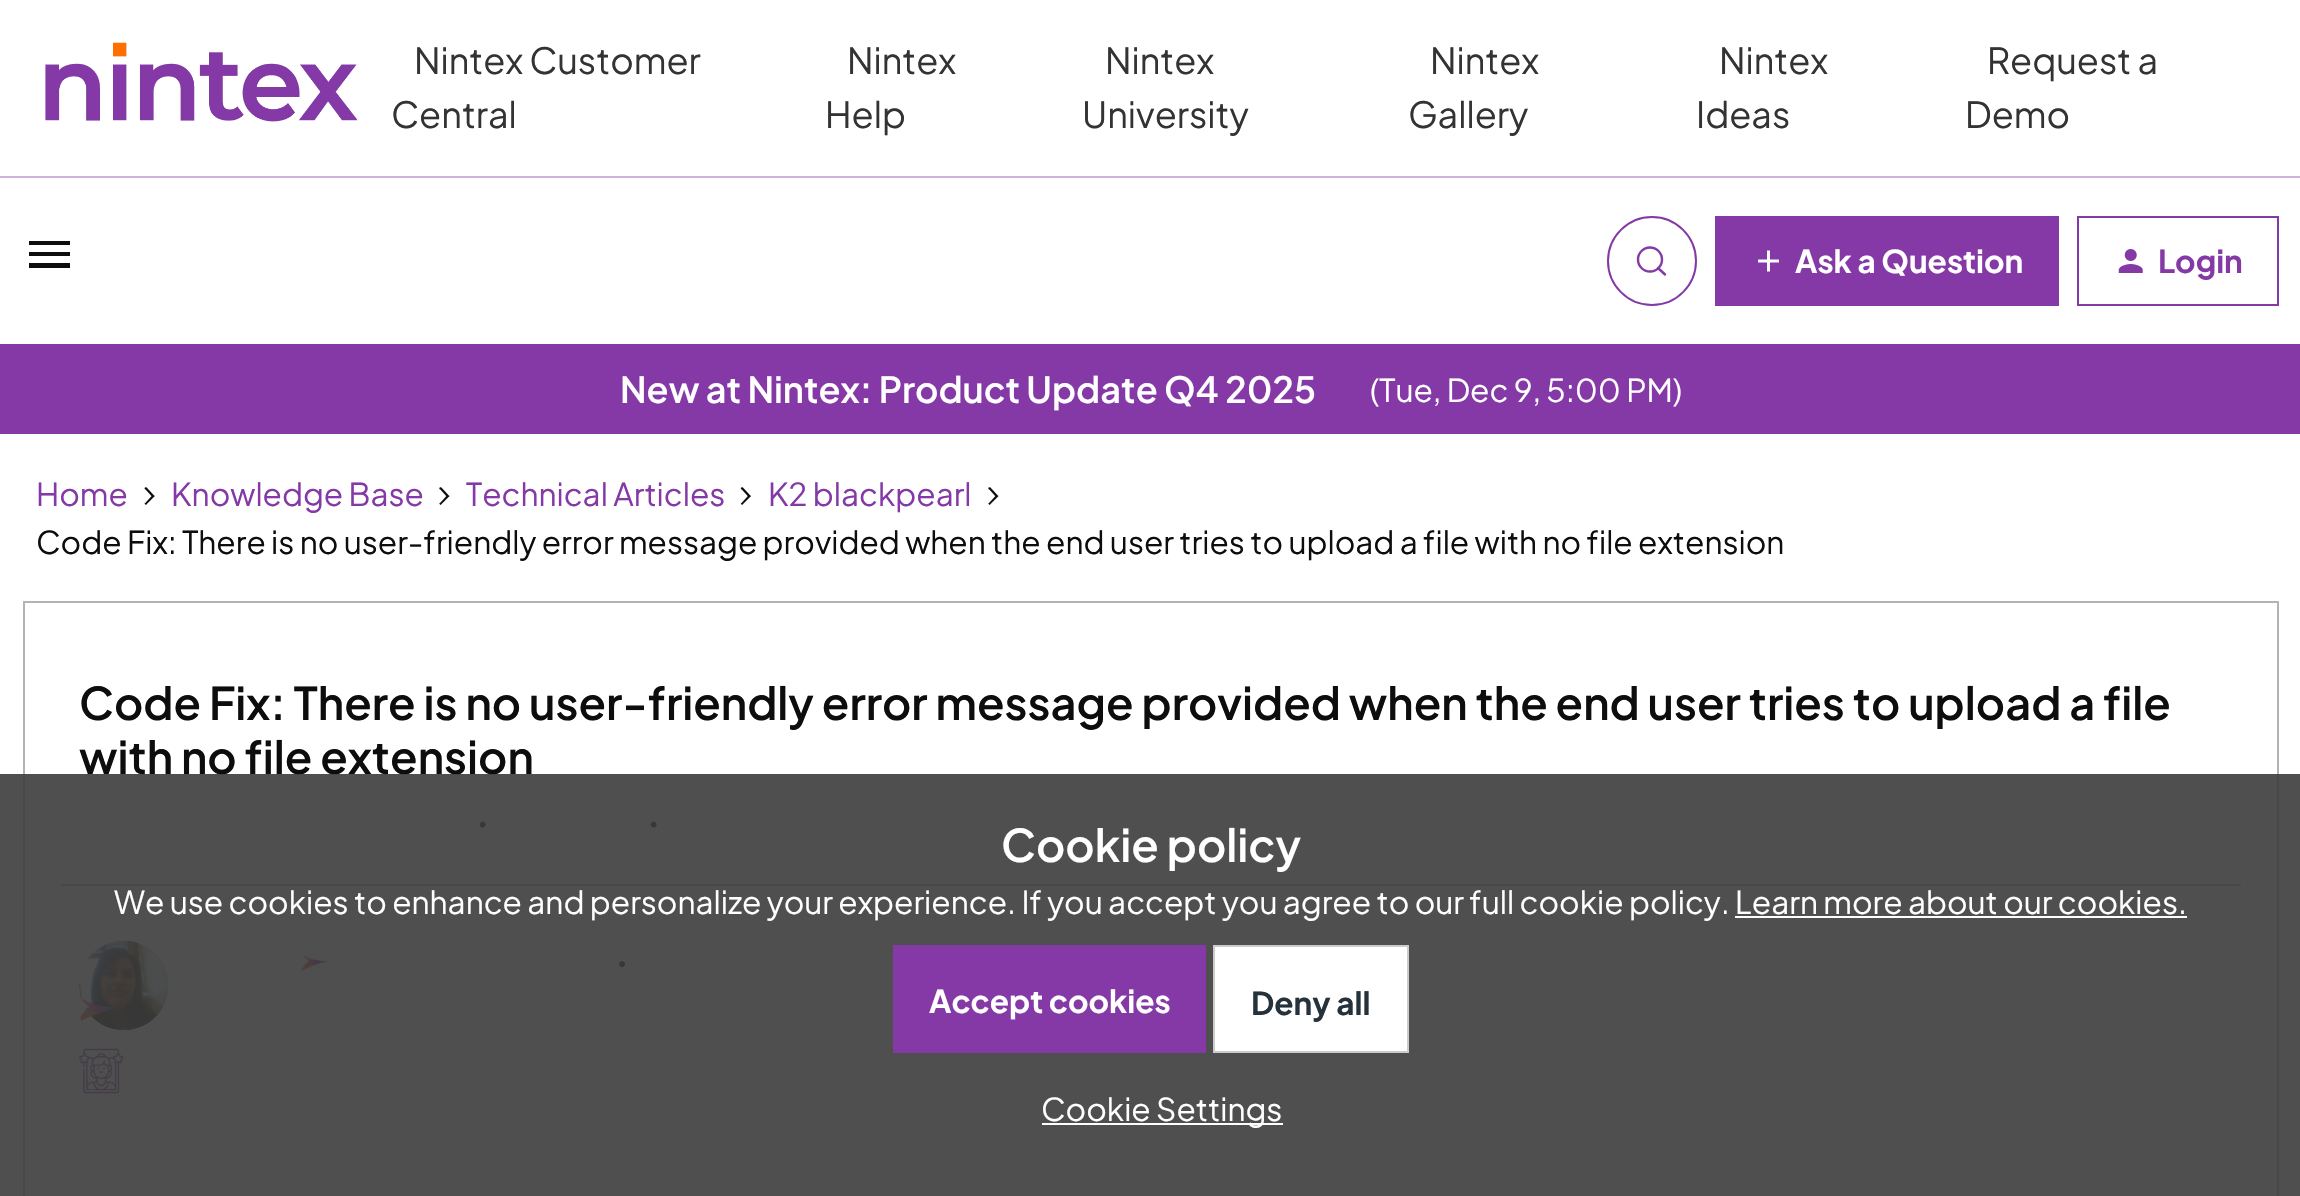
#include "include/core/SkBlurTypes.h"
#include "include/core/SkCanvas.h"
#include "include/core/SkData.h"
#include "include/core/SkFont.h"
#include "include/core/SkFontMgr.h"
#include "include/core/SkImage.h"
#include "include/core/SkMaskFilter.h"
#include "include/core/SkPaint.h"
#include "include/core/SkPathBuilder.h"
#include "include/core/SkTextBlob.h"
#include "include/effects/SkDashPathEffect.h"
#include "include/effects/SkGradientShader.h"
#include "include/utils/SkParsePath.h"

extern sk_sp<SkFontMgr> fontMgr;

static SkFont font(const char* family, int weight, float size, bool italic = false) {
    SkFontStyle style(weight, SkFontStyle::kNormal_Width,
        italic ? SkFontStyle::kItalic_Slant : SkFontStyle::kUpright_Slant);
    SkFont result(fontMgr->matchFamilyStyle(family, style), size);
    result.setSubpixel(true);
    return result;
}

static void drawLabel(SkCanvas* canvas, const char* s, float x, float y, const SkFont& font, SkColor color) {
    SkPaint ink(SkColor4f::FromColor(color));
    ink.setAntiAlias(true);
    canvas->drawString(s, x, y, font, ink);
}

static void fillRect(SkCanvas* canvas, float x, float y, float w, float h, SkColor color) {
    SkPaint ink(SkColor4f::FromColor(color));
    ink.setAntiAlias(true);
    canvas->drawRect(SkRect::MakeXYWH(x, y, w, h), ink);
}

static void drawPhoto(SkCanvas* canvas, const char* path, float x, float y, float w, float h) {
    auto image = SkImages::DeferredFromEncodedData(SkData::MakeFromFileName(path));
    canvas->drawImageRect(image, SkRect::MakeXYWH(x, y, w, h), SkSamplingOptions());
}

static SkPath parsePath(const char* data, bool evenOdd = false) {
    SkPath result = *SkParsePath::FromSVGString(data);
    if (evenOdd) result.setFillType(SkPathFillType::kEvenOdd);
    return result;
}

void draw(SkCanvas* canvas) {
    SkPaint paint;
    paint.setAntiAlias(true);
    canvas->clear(0xFFFFFFFF);
    drawPhoto(canvas, "assets/img1.png", 45, 42, 313, 80);
    SkFont font1 = font("Plus Jakarta Sans", 400, 36);
    drawLabel(canvas, "Nintex Customer", 414, 74, font1, 0xFF333333);
    drawLabel(canvas, "Central", 391, 128, font1, 0xFF333333);
    drawLabel(canvas, "Nintex", 847, 74, font1, 0xFF333333);
    drawLabel(canvas, "Help", 825, 128, font1, 0xFF333333);
    drawLabel(canvas, "Nintex", 1105, 74, font1, 0xFF333333);
    drawLabel(canvas, "University", 1082, 128, font1, 0xFF333333);
    drawLabel(canvas, "Nintex", 1430, 74, font1, 0xFF333333);
    drawLabel(canvas, "Gallery", 1408, 128, font1, 0xFF333333);
    drawLabel(canvas, "Nintex", 1719, 74, font1, 0xFF333333);
    drawLabel(canvas, "Ideas", 1696, 128, font1, 0xFF333333);
    drawLabel(canvas, "Request a", 1987, 74, font1, 0xFF333333);
    drawLabel(canvas, "Demo", 1965, 128, font1, 0xFF333333);
    fillRect(canvas, 0, 176, 2300, 2, 0xFFCEB0DB);
    paint.setColor(0xFF0D0D0D);
    canvas->drawPath(parsePath("M29 268H70V263H29ZM29 256H70V252H29ZM29 241V245H70V241Z"), paint);
    paint.setStroke(true);
    paint.setStrokeWidth(2);
    paint.setColor(0xFF8439A6);
    canvas->drawCircle(1652, 261, 44, paint);
    paint.setStrokeWidth(2.4f);
    canvas->drawCircle(1650, 259.5f, 12, paint);
    paint.setStrokeCap(SkPaint::kRound_Cap);
    canvas->drawPath(parsePath("M1658 268L1665 274.5"), paint);
    fillRect(canvas, 1715, 216, 344, 90, 0xFF8439A6);
    drawPhoto(canvas, "assets/img2.png", 1758, 250, 21, 22);
    SkFont font2 = font("Plus Jakarta Sans", 700, 31.5f);
    drawLabel(canvas, "Ask a Question", 1795, 273, font2, 0xFFFFFFFF);
    paint.setStrokeWidth(2);
    paint.setStrokeCap(SkPaint::kButt_Cap);
    canvas->drawRect(SkRect::MakeXYWH(2078, 217, 200, 88), paint);
    drawPhoto(canvas, "assets/img3.png", 2118, 249, 25, 24);
    drawLabel(canvas, "Login", 2158, 273, font2, 0xFF8439A6);
    fillRect(canvas, 0, 344, 2300, 90, 0xFF8439A6);
    SkFont font3 = font("Plus Jakarta Sans", 600, 36);
    drawLabel(canvas, "New at Nintex: Product Update Q4 2025", 620, 403, font3, 0xFFFFFFFF);
    SkFont font4 = font("Plus Jakarta Sans", 400, 31.5f);
    drawLabel(canvas, "(Tue, Dec 9, 5:00 PM)", 1370, 402, font4, 0xFFFFFFFF);
    drawLabel(canvas, "Home", 36, 506, font4, 0xFF8439A6);
    drawPhoto(canvas, "assets/img4.png", 144, 487, 11, 18);
    drawLabel(canvas, "Knowledge Base", 171, 506, font4, 0xFF8439A6);
    drawPhoto(canvas, "assets/img5.png", 439, 487, 11, 18);
    drawLabel(canvas, "Technical Articles", 466, 506, font4, 0xFF8439A6);
    drawPhoto(canvas, "assets/img6.png", 740, 487, 11, 18);
    drawLabel(canvas, "K2 blackpearl", 768, 506, font4, 0xFF8439A6);
    drawPhoto(canvas, "assets/img5.png", 988, 487, 11, 18);
    drawLabel(canvas, "Code Fix: There is no user-friendly error message provided when the end user tries to upload a file with no file extension", 36, 554, font4, 0xFF0D0D0D);
    paint.setColor(0xFFB3B3B3);
    canvas->drawRect(SkRect::MakeXYWH(24, 602, 2254, 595), paint);
    SkFont font5 = font("Plus Jakarta Sans", 600, 45);
    drawLabel(canvas, "Code Fix: There is no user-friendly error message provided when the end user tries to upload a file", 79, 720, font5, 0xFF0D0D0D);
    drawLabel(canvas, "with no file extension", 79, 774, font5, 0xFF0D0D0D);
    drawPhoto(canvas, "assets/img7.png", 479, 821, 7, 7);
    drawPhoto(canvas, "assets/img7.png", 650, 821, 7, 7);
    fillRect(canvas, 61, 884, 2180, 2, 0xFFB3B3B3);
    drawPhoto(canvas, "assets/img8.png", 79, 940, 90, 91);
    drawPhoto(canvas, "assets/img9.png", 80, 998, 39, 23);
    drawPhoto(canvas, "assets/img10.png", 78, 1048, 46, 46);
    drawPhoto(canvas, "assets/img11.png", 301, 954, 27, 18);
    drawPhoto(canvas, "assets/img12.png", 619, 961, 7, 7);
    fillRect(canvas, 0, 774, 2300, 422, 0xE63C3C3C);
    drawLabel(canvas, "Cookie policy", 1001, 862, font5, 0xFFFFFFFF);
    drawLabel(canvas, "We use cookies to enhance and personalize your experience. If you accept you agree to our full cookie policy. Learn more about our cookies.", 114, 914, font4, 0xFFFFFFFF);
    fillRect(canvas, 1735, 916, 452, 2, 0xFFFFFFFF);
    fillRect(canvas, 893, 945, 313, 108, 0xFF8439A6);
    drawLabel(canvas, "Accept cookies", 929, 1013, font2, 0xFFFFFFFF);
    paint.setStroke(false);
    paint.setColor(0xFFFFFFFF);
    canvas->drawRect(SkRect::MakeXYWH(1214, 946, 194, 106), paint);
    paint.setStroke(true);
    paint.setColor(0xFFCCCCCC);
    canvas->drawRect(SkRect::MakeXYWH(1214, 946, 194, 106), paint);
    drawLabel(canvas, "Deny all", 1251, 1015, font2, 0xFF25313B);
    fillRect(canvas, 1042, 1123, 241, 2, 0xFFFFFFFF);
    drawLabel(canvas, "Cookie Settings", 1041, 1121, font4, 0xFFFFFFFF);
}
